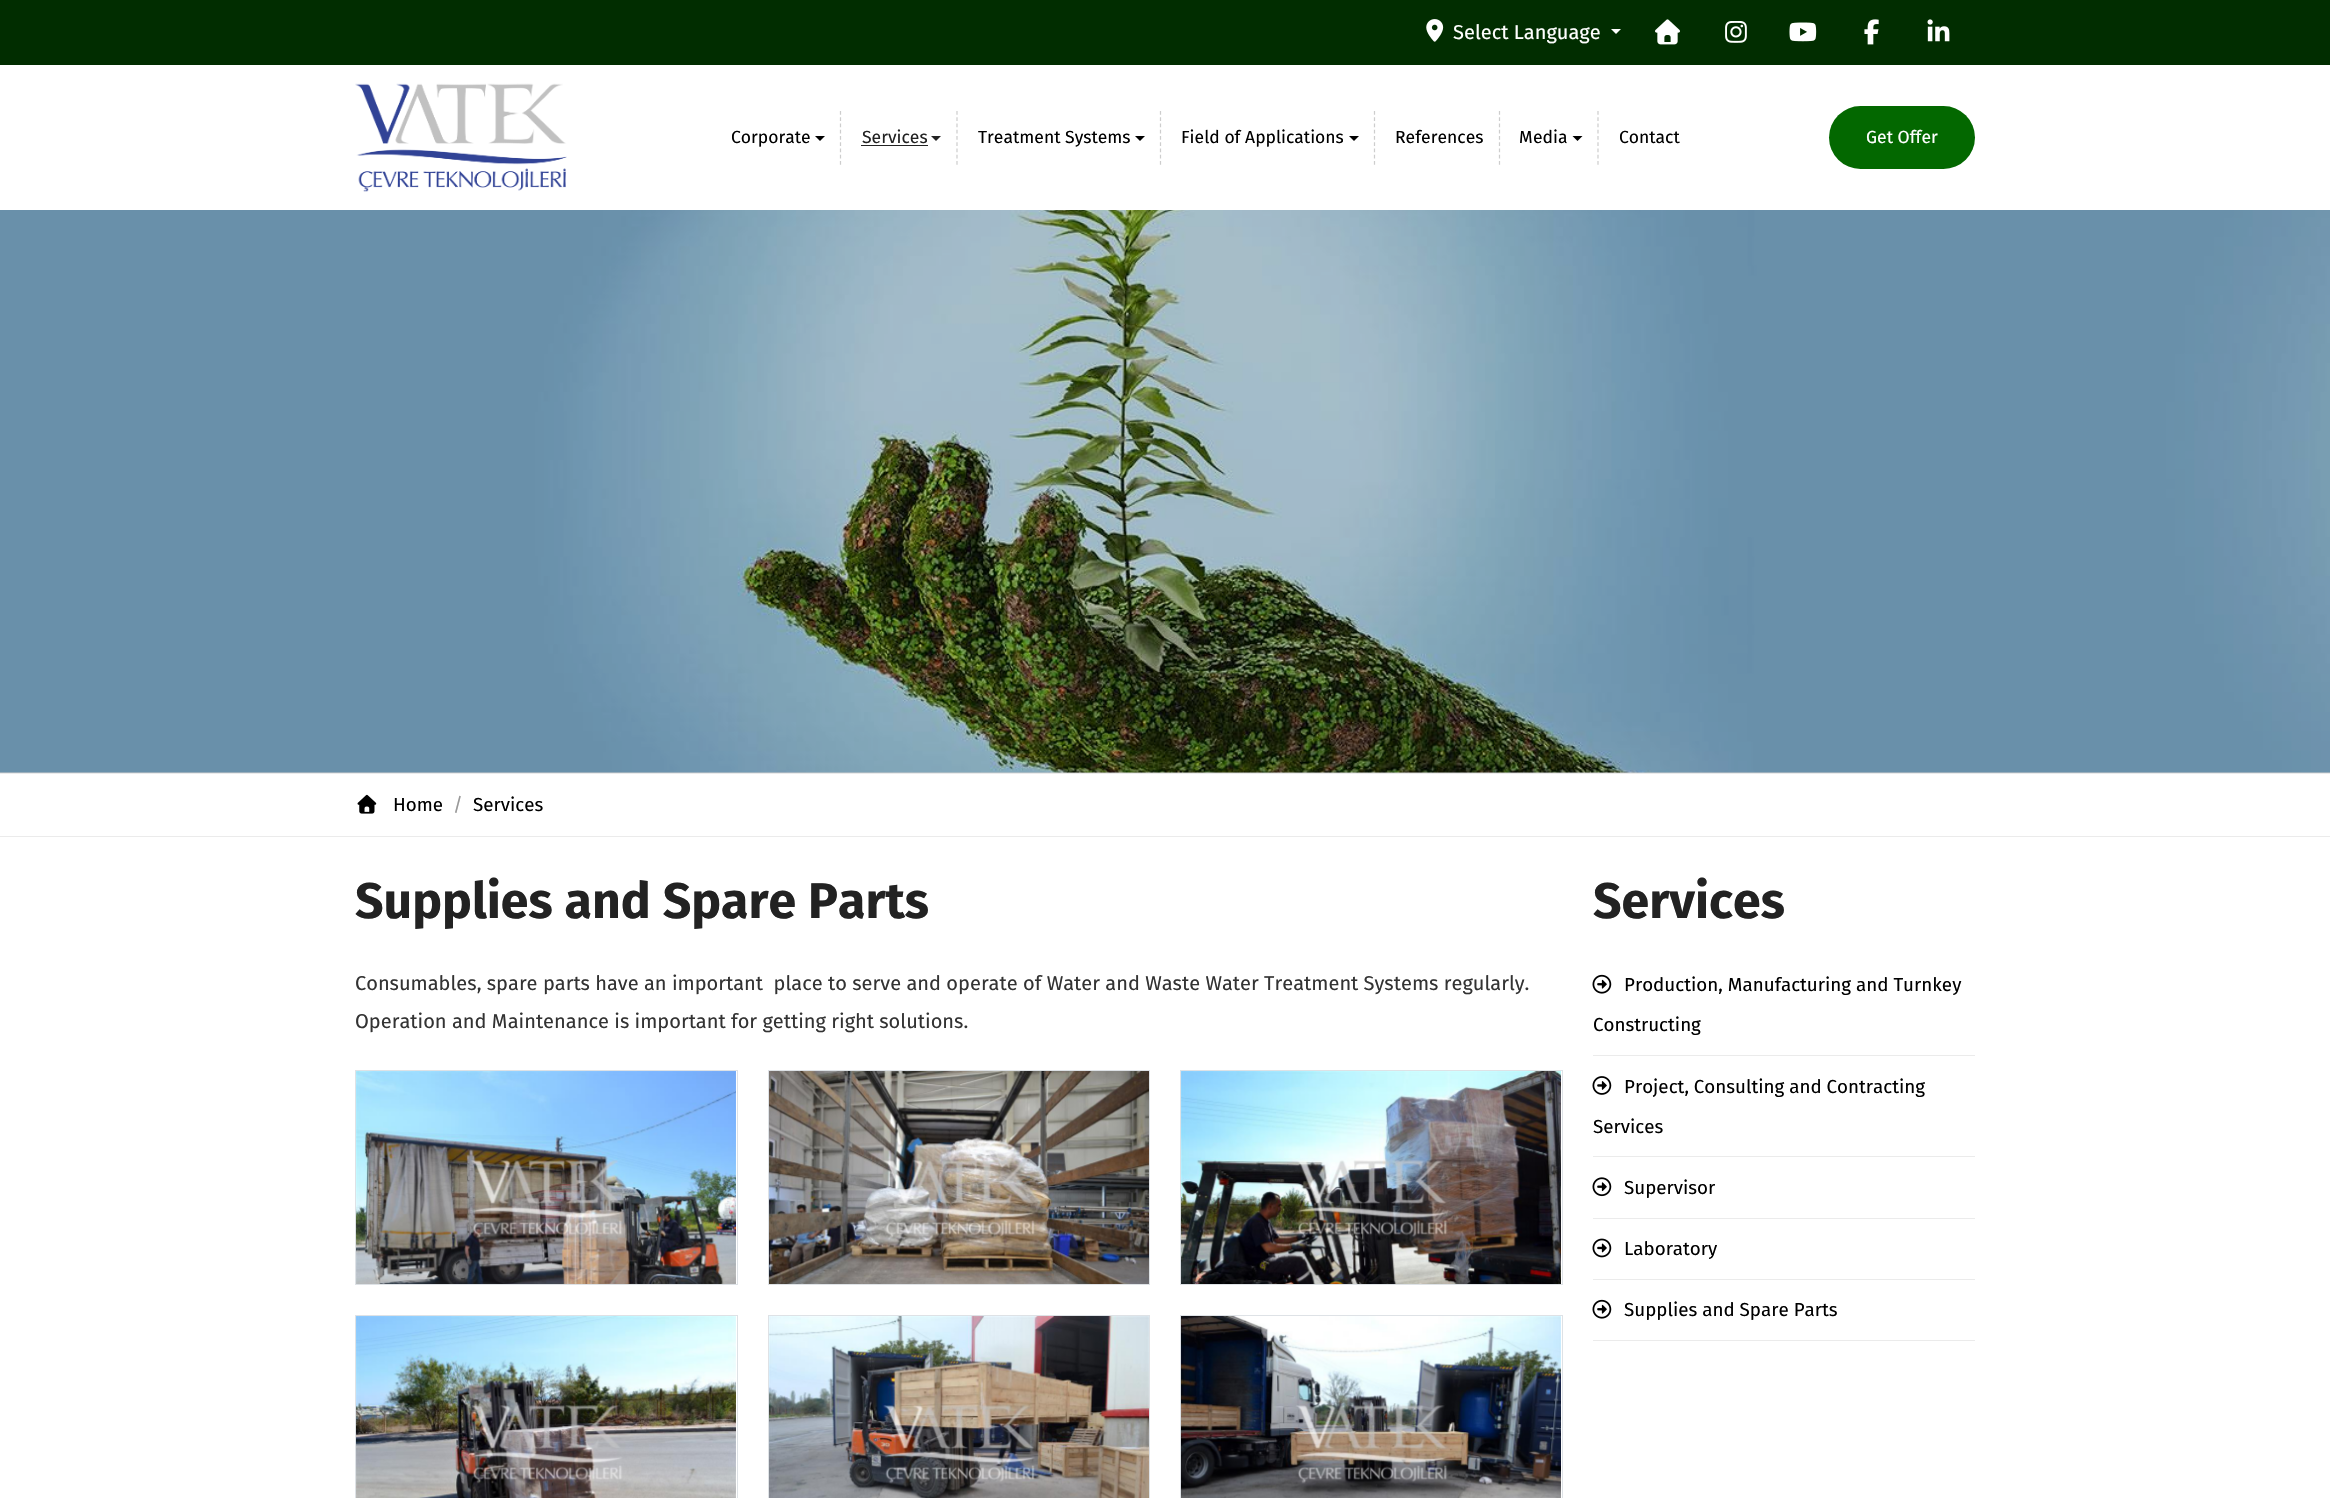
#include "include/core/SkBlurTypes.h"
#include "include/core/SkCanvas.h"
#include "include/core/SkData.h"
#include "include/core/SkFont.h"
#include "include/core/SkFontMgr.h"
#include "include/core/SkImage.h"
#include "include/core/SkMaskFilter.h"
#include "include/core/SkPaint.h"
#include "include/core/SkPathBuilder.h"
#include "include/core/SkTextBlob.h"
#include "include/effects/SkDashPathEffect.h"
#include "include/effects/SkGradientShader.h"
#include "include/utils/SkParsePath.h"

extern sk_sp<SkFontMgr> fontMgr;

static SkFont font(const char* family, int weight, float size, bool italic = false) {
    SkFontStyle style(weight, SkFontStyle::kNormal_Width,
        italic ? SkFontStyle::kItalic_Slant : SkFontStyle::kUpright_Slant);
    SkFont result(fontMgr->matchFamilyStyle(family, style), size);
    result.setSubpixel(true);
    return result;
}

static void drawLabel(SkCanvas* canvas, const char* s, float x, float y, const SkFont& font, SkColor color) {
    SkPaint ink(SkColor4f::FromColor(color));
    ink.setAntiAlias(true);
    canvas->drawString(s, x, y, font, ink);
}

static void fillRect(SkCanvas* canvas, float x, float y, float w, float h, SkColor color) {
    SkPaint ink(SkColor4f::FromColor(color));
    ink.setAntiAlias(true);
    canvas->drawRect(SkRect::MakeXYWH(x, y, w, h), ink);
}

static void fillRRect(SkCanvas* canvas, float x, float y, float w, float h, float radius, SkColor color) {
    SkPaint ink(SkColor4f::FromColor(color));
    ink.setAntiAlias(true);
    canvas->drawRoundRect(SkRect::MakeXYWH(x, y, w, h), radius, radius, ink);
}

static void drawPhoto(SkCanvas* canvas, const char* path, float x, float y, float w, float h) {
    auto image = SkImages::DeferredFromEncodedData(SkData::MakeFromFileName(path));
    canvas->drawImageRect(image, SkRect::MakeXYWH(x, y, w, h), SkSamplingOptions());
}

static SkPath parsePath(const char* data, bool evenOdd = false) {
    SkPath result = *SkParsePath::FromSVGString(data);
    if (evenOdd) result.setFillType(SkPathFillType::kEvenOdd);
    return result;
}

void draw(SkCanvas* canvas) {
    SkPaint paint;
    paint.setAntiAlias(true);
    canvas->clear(0xFFFFFFFF);
    fillRect(canvas, 0, 772, 2330, 1, 0xFFCCCCCC);
    fillRect(canvas, 0, 0, 2330, 65, 0xFF012D00);
    drawPhoto(canvas, "assets/img1.png", 1426, 19, 18, 23);
    SkFont font1 = font("Fira Sans", 400, 20);
    drawLabel(canvas, "Select Language", 1453, 39, font1, 0xFFFFFFFF);
    paint.setColor(0xFFFFFFFF);
    canvas->drawPath(parsePath("M1611 29H1621L1616 34Z"), paint);
    drawPhoto(canvas, "assets/img2.png", 1655, 19, 25, 26);
    drawPhoto(canvas, "assets/img3.png", 1725, 21, 22, 22);
    drawPhoto(canvas, "assets/img4.png", 1789, 22, 28, 20);
    drawPhoto(canvas, "assets/img5.png", 1864, 19, 15, 26);
    drawPhoto(canvas, "assets/img6.png", 1927, 19, 23, 23);
    drawPhoto(canvas, "assets/img7.png", 355, 83, 212, 109);
    paint.setStroke(true);
    paint.setStrokeWidth(1.2f);
    paint.setColor(0xFFCDCDCD);
    paint.setPathEffect(SkDashPathEffect::Make({{3.75f, 2.5f}}, 0));
    canvas->drawPath(parsePath("M840.5 111V165"), paint);
    paint.setPathEffect(nullptr);
    SkFont font2 = font("Fira Sans", 400, 17.5f);
    drawLabel(canvas, "Corporate", 731, 143, font2, 0xFF000000);
    paint.setStroke(false);
    paint.setColor(0xFF000000);
    canvas->drawPath(parsePath("M815 136H825L820 141Z"), paint);
    paint.setStroke(true);
    paint.setColor(0xFFCDCDCD);
    paint.setPathEffect(SkDashPathEffect::Make({{3.75f, 2.5f}}, 0));
    canvas->drawPath(parsePath("M957 111V165"), paint);
    paint.setPathEffect(nullptr);
    drawLabel(canvas, "Services", 862, 143, font2, 0xFF222222);
    fillRect(canvas, 861, 145, 67, 1, 0xFF222222);
    paint.setStroke(false);
    paint.setColor(0xFF222222);
    canvas->drawPath(parsePath("M931 136H941L936 141Z"), paint);
    paint.setStroke(true);
    paint.setColor(0xFFCDCDCD);
    paint.setPathEffect(SkDashPathEffect::Make({{3.75f, 2.5f}}, 0));
    canvas->drawPath(parsePath("M1160.5 111V165"), paint);
    paint.setPathEffect(nullptr);
    drawLabel(canvas, "Treatment Systems", 978, 143, font2, 0xFF000000);
    paint.setStroke(false);
    paint.setColor(0xFF000000);
    canvas->drawPath(parsePath("M1135 136H1145L1140 141Z"), paint);
    paint.setStroke(true);
    paint.setColor(0xFFCDCDCD);
    paint.setPathEffect(SkDashPathEffect::Make({{3.75f, 2.5f}}, 0));
    canvas->drawPath(parsePath("M1374.5 111V165"), paint);
    paint.setPathEffect(nullptr);
    drawLabel(canvas, "Field of Applications", 1181, 143, font2, 0xFF000000);
    paint.setStroke(false);
    paint.setColor(0xFF000000);
    canvas->drawPath(parsePath("M1349 136H1359L1354 141Z"), paint);
    paint.setStroke(true);
    paint.setColor(0xFFCDCDCD);
    paint.setPathEffect(SkDashPathEffect::Make({{3.75f, 2.5f}}, 0));
    canvas->drawPath(parsePath("M1499.5 111V165"), paint);
    paint.setPathEffect(nullptr);
    drawLabel(canvas, "References", 1395, 143, font2, 0xFF000000);
    paint.setPathEffect(SkDashPathEffect::Make({{3.75f, 2.5f}}, 0));
    canvas->drawPath(parsePath("M1598 111V165"), paint);
    paint.setPathEffect(nullptr);
    drawLabel(canvas, "Media", 1519, 143, font2, 0xFF000000);
    paint.setStroke(false);
    paint.setColor(0xFF000000);
    canvas->drawPath(parsePath("M1572.5 136H1582.5L1577.5 141Z"), paint);
    drawLabel(canvas, "Contact", 1619, 143, font2, 0xFF000000);
    fillRRect(canvas, 1829, 106, 146, 63, 31.5f, 0xFF036800);
    drawLabel(canvas, "Get Offer", 1866, 143, font2, 0xFFFFFFFF);
    drawPhoto(canvas, "assets/img8.png", 0, 210, 2330, 563);
    fillRect(canvas, 0, 773, 2330, 1, 0xFFEBEBEB);
    fillRect(canvas, 0, 836, 2330, 1, 0xFFEBEBEB);
    drawPhoto(canvas, "assets/img9.png", 357, 794, 20, 20);
    SkFont font3 = font("Fira Sans", 400, 18.75f);
    drawLabel(canvas, "Home", 393, 811, font3, 0xFF000000);
    drawLabel(canvas, "/", 453, 811, font3, 0xFF999999);
    drawLabel(canvas, "Services", 473, 811, font3, 0xFF000000);
    SkFont font4 = font("Fira Sans", 700, 50);
    drawLabel(canvas, "Supplies and Spare Parts", 355, 918, font4, 0xFF222222);
    drawLabel(canvas, "Consumables, spare parts have an important  place to serve and operate of Water and Waste Water Treatment Systems regularly.", 355, 990, font1, 0xFF333333);
    drawLabel(canvas, "Operation and Maintenance is important for getting right solutions.", 355, 1028, font1, 0xFF333333);
    paint.setStroke(true);
    paint.setStrokeWidth(1);
    paint.setColor(0xFFDEE2E6);
    canvas->drawRect(SkRect::MakeXYWH(355.5f, 1070.5f, 382, 214), paint);
    drawPhoto(canvas, "assets/img10.png", 356, 1071, 380, 213);
    canvas->drawRect(SkRect::MakeXYWH(768.5f, 1070.5f, 381, 214), paint);
    drawPhoto(canvas, "assets/img11.png", 769, 1071, 380, 213);
    canvas->drawRect(SkRect::MakeXYWH(1180.5f, 1070.5f, 382, 214), paint);
    drawPhoto(canvas, "assets/img12.png", 1181, 1071, 380, 213);
    canvas->drawRect(SkRect::MakeXYWH(355.5f, 1315.5f, 382, 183), paint);
    drawPhoto(canvas, "assets/img13.png", 356, 1316, 380, 182);
    canvas->drawRect(SkRect::MakeXYWH(768.5f, 1315.5f, 381, 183), paint);
    drawPhoto(canvas, "assets/img14.png", 769, 1316, 380, 182);
    canvas->drawRect(SkRect::MakeXYWH(1180.5f, 1315.5f, 382, 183), paint);
    drawPhoto(canvas, "assets/img15.png", 1181, 1316, 380, 182);
    drawLabel(canvas, "Services", 1593, 918, font4, 0xFF222222);
    fillRect(canvas, 1593, 1055, 382, 1, 0xFFEBEBEB);
    drawPhoto(canvas, "assets/img16.png", 1592, 974, 20, 20);
    drawLabel(canvas, "Production, Manufacturing and Turnkey", 1624, 991, font3, 0xFF000000);
    drawLabel(canvas, "Constructing", 1593, 1031, font3, 0xFF000000);
    fillRect(canvas, 1593, 1156, 382, 1, 0xFFEBEBEB);
    drawPhoto(canvas, "assets/img17.png", 1592, 1076, 20, 19);
    drawLabel(canvas, "Project, Consulting and Contracting", 1624, 1093, font3, 0xFF000000);
    drawLabel(canvas, "Services", 1593, 1133, font3, 0xFF000000);
    fillRect(canvas, 1593, 1218, 382, 1, 0xFFEBEBEB);
    drawPhoto(canvas, "assets/img18.png", 1592, 1177, 20, 20);
    drawLabel(canvas, "Supervisor", 1624, 1194, font3, 0xFF000000);
    fillRect(canvas, 1593, 1279, 382, 1, 0xFFEBEBEB);
    drawPhoto(canvas, "assets/img19.png", 1592, 1238, 20, 20);
    drawLabel(canvas, "Laboratory", 1624, 1255, font3, 0xFF000000);
    fillRect(canvas, 1593, 1340, 382, 1, 0xFFEBEBEB);
    drawPhoto(canvas, "assets/img16.png", 1592, 1299, 20, 20);
    drawLabel(canvas, "Supplies and Spare Parts", 1624, 1316, font3, 0xFF000000);
}
